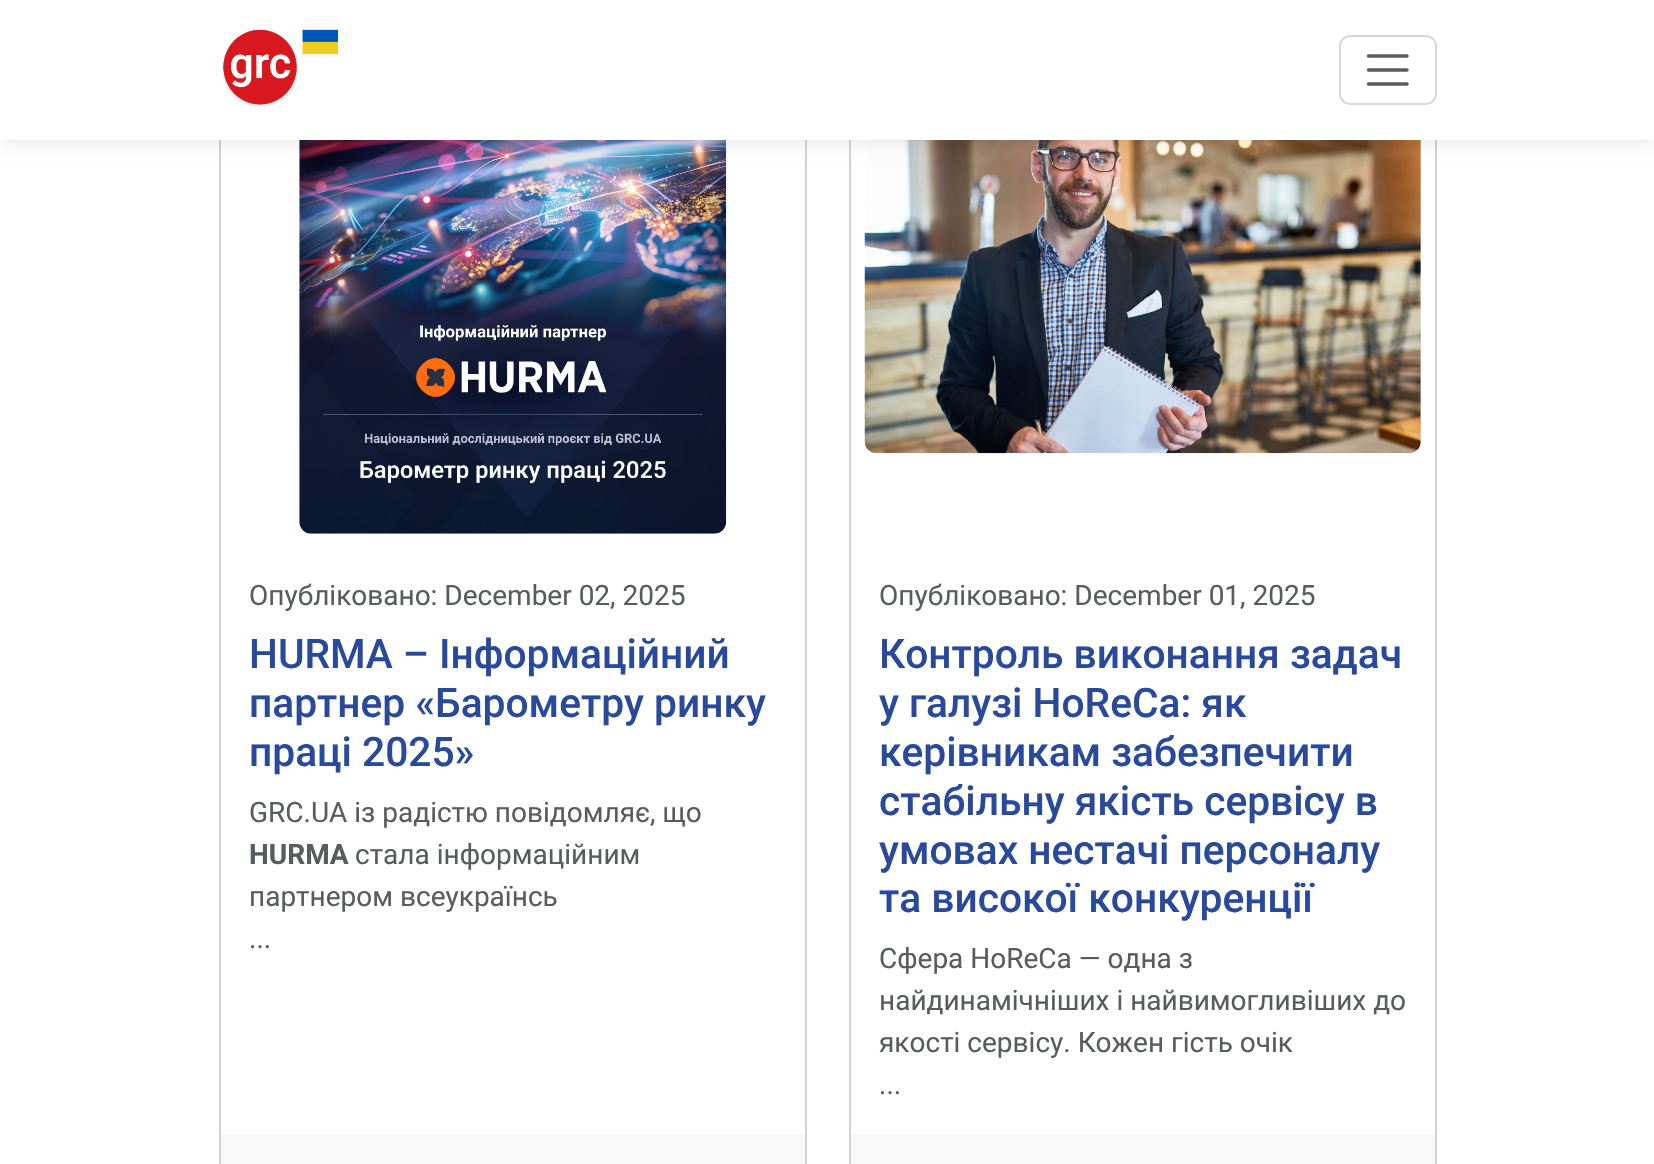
#include "include/core/SkBlurTypes.h"
#include "include/core/SkCanvas.h"
#include "include/core/SkData.h"
#include "include/core/SkFont.h"
#include "include/core/SkFontMgr.h"
#include "include/core/SkImage.h"
#include "include/core/SkMaskFilter.h"
#include "include/core/SkPaint.h"
#include "include/core/SkPathBuilder.h"
#include "include/core/SkTextBlob.h"
#include "include/effects/SkDashPathEffect.h"
#include "include/effects/SkGradientShader.h"
#include "include/utils/SkParsePath.h"

extern sk_sp<SkFontMgr> fontMgr;

static SkFont font(const char* family, int weight, float size, bool italic = false) {
    SkFontStyle style(weight, SkFontStyle::kNormal_Width,
        italic ? SkFontStyle::kItalic_Slant : SkFontStyle::kUpright_Slant);
    SkFont result(fontMgr->matchFamilyStyle(family, style), size);
    result.setSubpixel(true);
    return result;
}

static void drawLabel(SkCanvas* canvas, const char* s, float x, float y, const SkFont& font, SkColor color) {
    SkPaint ink(SkColor4f::FromColor(color));
    ink.setAntiAlias(true);
    canvas->drawString(s, x, y, font, ink);
}

static void fillRect(SkCanvas* canvas, float x, float y, float w, float h, SkColor color) {
    SkPaint ink(SkColor4f::FromColor(color));
    ink.setAntiAlias(true);
    canvas->drawRect(SkRect::MakeXYWH(x, y, w, h), ink);
}

static void drawPhoto(SkCanvas* canvas, const char* path, float x, float y, float w, float h) {
    auto image = SkImages::DeferredFromEncodedData(SkData::MakeFromFileName(path));
    canvas->drawImageRect(image, SkRect::MakeXYWH(x, y, w, h), SkSamplingOptions());
}

static SkPath parsePath(const char* data, bool evenOdd = false) {
    SkPath result = *SkParsePath::FromSVGString(data);
    if (evenOdd) result.setFillType(SkPathFillType::kEvenOdd);
    return result;
}

void draw(SkCanvas* canvas) {
    SkPaint paint;
    paint.setAntiAlias(true);
    canvas->clear(0xFFFFFFFF);
    paint.setStroke(true);
    paint.setStrokeWidth(2);
    paint.setColor(0xFFD2D2D2);
    canvas->drawRect(SkRect::MakeXYWH(220, -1, 586, 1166), paint);
    drawPhoto(canvas, "assets/img2.png", 299, 140, 428, 394);
    canvas->drawRect(SkRect::MakeXYWH(850, -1, 586, 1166), paint);
    drawPhoto(canvas, "assets/img3.png", 864, 140, 557, 314);
    paint.setStroke(false);
    paint.setColor(0x1A000000);
    paint.setMaskFilter(SkMaskFilter::MakeBlur(kNormal_SkBlurStyle, 9));
    canvas->drawRect(SkRect::MakeXYWH(0, 0, 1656, 140), paint);
    paint.setMaskFilter(nullptr);
    fillRect(canvas, 0, 0, 1654, 140, 0xFFFFFFFF);
    drawPhoto(canvas, "assets/img1.png", 222, 29, 117, 80);
    paint.setStroke(true);
    paint.setColor(0xFFD9D9D9);
    canvas->drawRoundRect(SkRect::MakeXYWH(1340, 36, 96, 68), 10, 10, paint);
    paint.setStrokeWidth(3.5f);
    paint.setStrokeCap(SkPaint::kRound_Cap);
    paint.setColor(0xFF595C5F);
    canvas->drawPath(parsePath("M1368.5 56H1407M1368.5 70H1407M1368.5 84H1407"), paint);
    SkFont font1 = font("Roboto", 400, 28);
    drawLabel(canvas, "Опубліковано: December 02, 2025", 249, 605, font1, 0xFF595C5F);
    SkFont font2 = font("Roboto", 500, 40.7f);
    drawLabel(canvas, "HURMA – Інформаційний", 249, 668, font2, 0xFF294A9C);
    drawLabel(canvas, "партнер «Барометру ринку", 249, 717, font2, 0xFF294A9C);
    drawLabel(canvas, "праці 2025»", 249, 766, font2, 0xFF294A9C);
    drawLabel(canvas, "GRC.UA із радістю повідомляє, що", 249, 822, font1, 0xFF595C5F);
    SkFont font3 = font("Roboto", 700, 28);
    drawLabel(canvas, "HURMA", 249, 864, font3, 0xFF595C5F);
    drawLabel(canvas, "стала інформаційним", 355, 864, font1, 0xFF595C5F);
    drawLabel(canvas, "партнером всеукраїнсь", 249, 906, font1, 0xFF595C5F);
    drawLabel(canvas, "...", 249, 948, font1, 0xFF595C5F);
    fillRect(canvas, 221, 1134, 584, 30, 0xFFF8F8F9);
    drawLabel(canvas, "Опубліковано: December 01, 2025", 879, 605, font1, 0xFF595C5F);
    drawLabel(canvas, "Контроль виконання задач", 879, 668, font2, 0xFF294A9C);
    drawLabel(canvas, "у галузі HoReCa: як", 879, 717, font2, 0xFF294A9C);
    drawLabel(canvas, "керівникам забезпечити", 879, 766, font2, 0xFF294A9C);
    drawLabel(canvas, "стабільну якість сервісу в", 879, 815, font2, 0xFF294A9C);
    drawLabel(canvas, "умовах нестачі персоналу", 879, 864, font2, 0xFF294A9C);
    drawLabel(canvas, "та високої конкуренції", 879, 912, font2, 0xFF294A9C);
    drawLabel(canvas, "Сфера HoReCa — одна з", 879, 968, font1, 0xFF595C5F);
    drawLabel(canvas, "найдинамічніших і найвимогливіших до", 879, 1010, font1, 0xFF595C5F);
    drawLabel(canvas, "якості сервісу. Кожен гість очік", 879, 1052, font1, 0xFF595C5F);
    drawLabel(canvas, "...", 879, 1094, font1, 0xFF595C5F);
    fillRect(canvas, 851, 1134, 584, 30, 0xFFF8F8F9);
}
